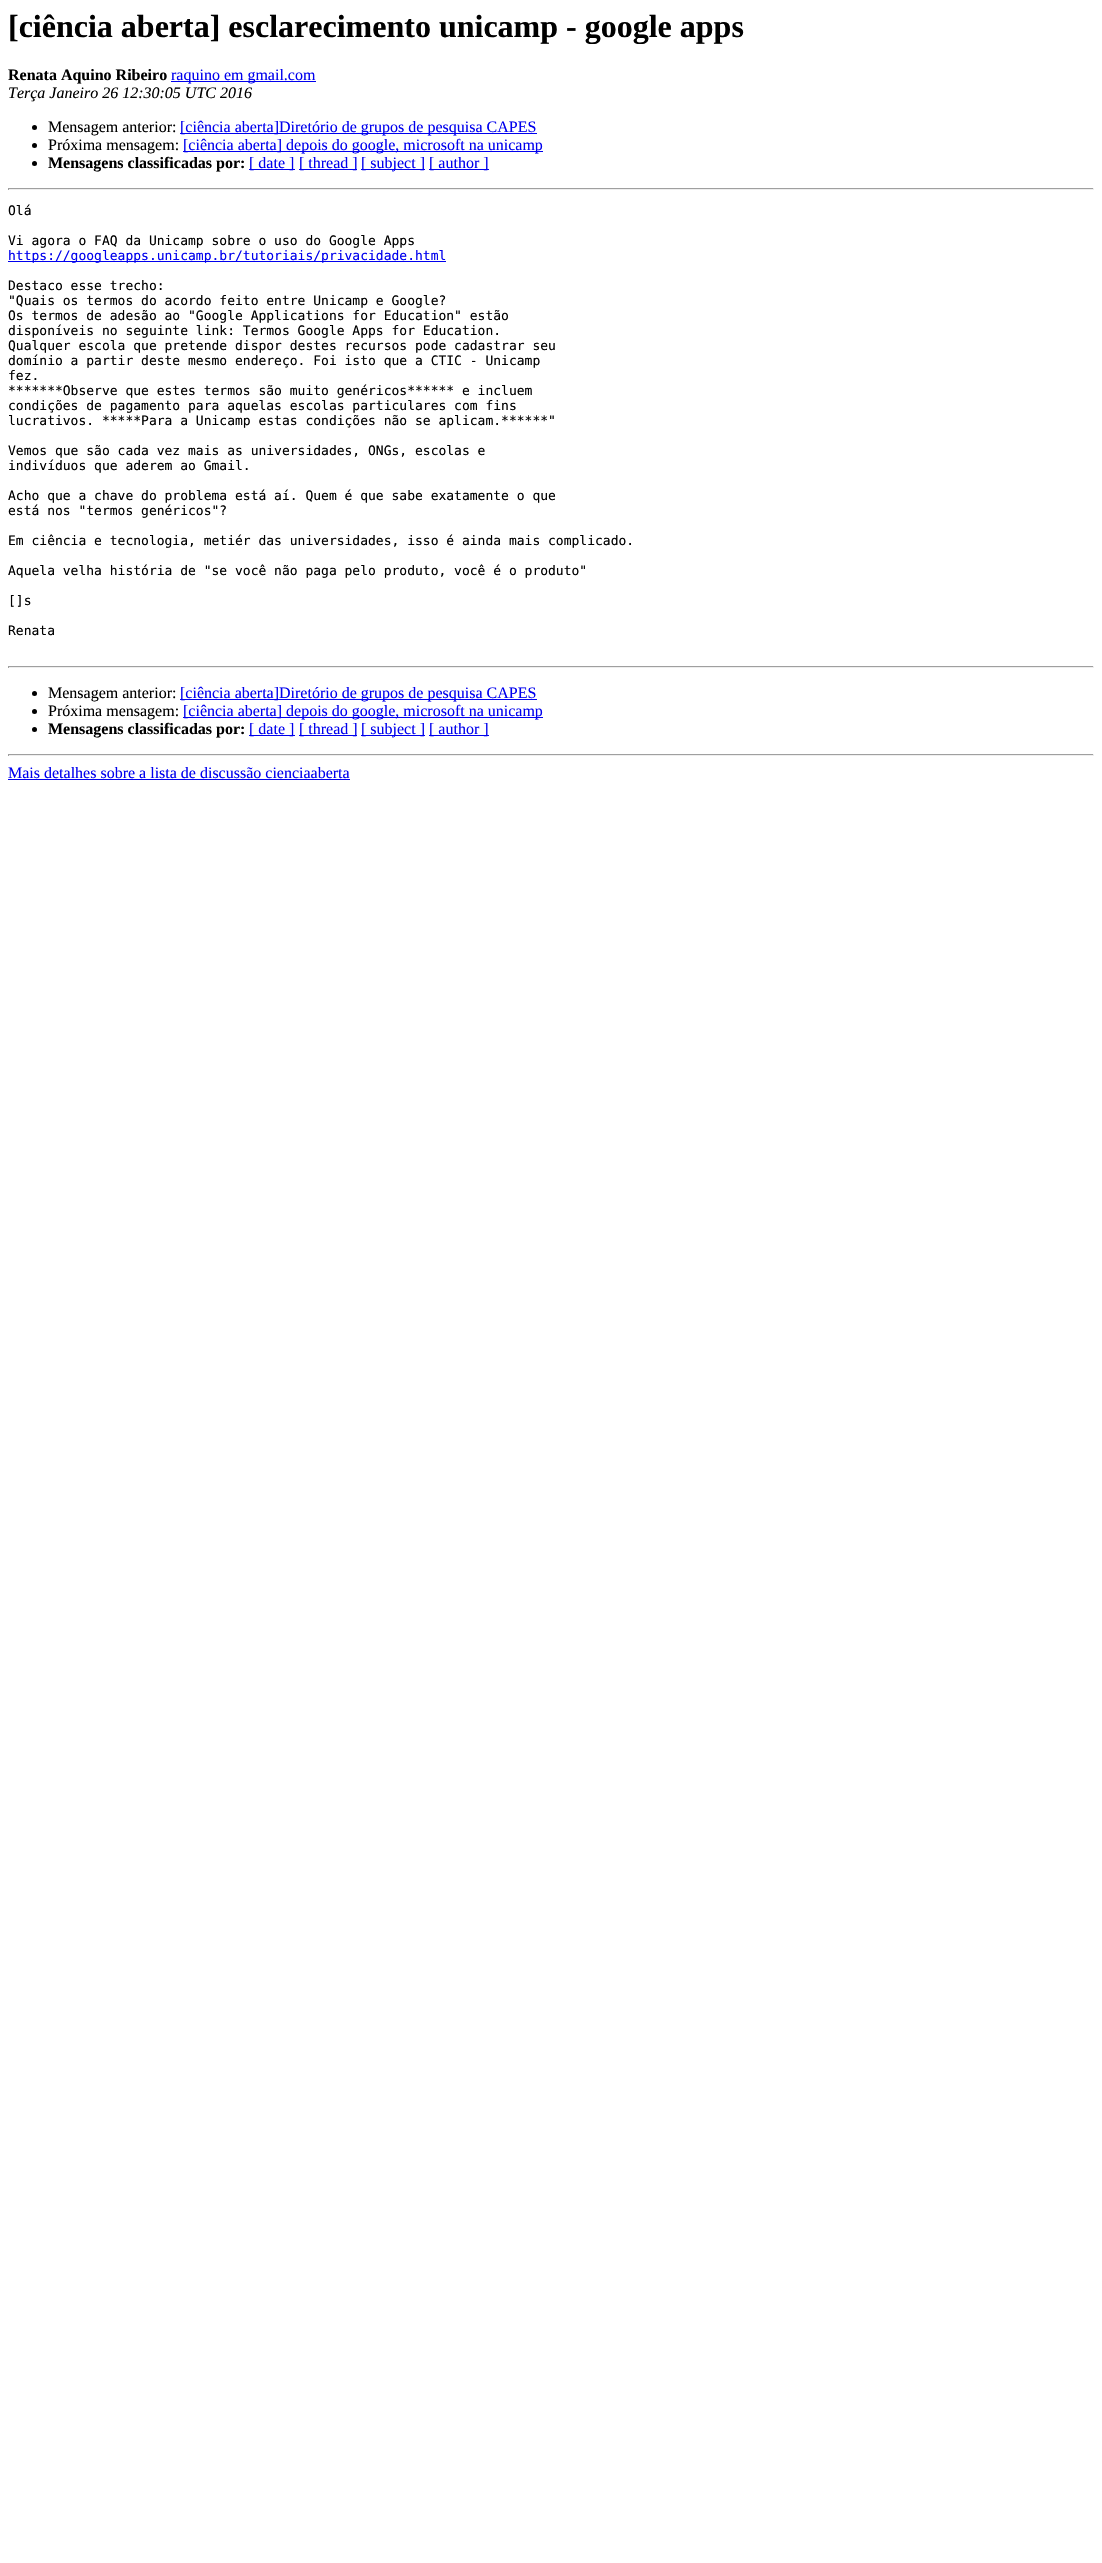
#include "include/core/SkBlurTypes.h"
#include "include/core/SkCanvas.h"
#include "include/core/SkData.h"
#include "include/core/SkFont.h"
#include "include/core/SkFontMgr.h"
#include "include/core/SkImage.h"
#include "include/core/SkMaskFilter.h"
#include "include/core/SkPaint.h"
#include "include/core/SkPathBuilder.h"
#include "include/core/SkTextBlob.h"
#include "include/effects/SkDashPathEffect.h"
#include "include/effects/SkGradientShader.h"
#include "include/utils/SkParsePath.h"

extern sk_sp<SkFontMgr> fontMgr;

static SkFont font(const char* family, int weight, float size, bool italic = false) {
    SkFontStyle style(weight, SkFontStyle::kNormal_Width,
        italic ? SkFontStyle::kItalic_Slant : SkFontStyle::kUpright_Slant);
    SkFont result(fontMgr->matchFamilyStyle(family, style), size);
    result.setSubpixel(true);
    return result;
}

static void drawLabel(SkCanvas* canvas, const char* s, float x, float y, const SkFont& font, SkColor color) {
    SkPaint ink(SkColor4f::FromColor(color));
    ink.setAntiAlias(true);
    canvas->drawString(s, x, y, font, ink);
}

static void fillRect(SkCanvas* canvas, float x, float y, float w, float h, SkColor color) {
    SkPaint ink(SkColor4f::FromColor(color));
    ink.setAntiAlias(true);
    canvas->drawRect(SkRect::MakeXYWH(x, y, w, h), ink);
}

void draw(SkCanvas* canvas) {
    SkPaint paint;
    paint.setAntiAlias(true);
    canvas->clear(0xFFFFFFFF);
    SkFont font1 = font("Liberation Serif", 700, 32);
    drawLabel(canvas, "[ciência aberta] esclarecimento unicamp - google apps", 8, 37, font1, 0xFF000000);
    SkFont font2 = font("Liberation Serif", 700, 16);
    drawLabel(canvas, "Renata Aquino Ribeiro", 8, 80, font2, 0xFF000000);
    fillRect(canvas, 171, 81, 145, 1, 0xFF0000EE);
    SkFont font3 = font("Liberation Serif", 400, 16);
    drawLabel(canvas, "raquino em gmail.com", 171, 80, font3, 0xFF0000EE);
    SkFont font4 = font("Liberation Serif", 400, 16, true);
    drawLabel(canvas, "Terça Janeiro 26 12:30:05 UTC 2016", 8, 98, font4, 0xFF000000);
    paint.setColor(0xFF000000);
    canvas->drawCircle(34.5f, 127.5f, 2.5f, paint);
    drawLabel(canvas, "Mensagem anterior:", 48, 132, font3, 0xFF000000);
    fillRect(canvas, 180, 133, 357, 1, 0xFF0000EE);
    drawLabel(canvas, "[ciência aberta]Diretório de grupos de pesquisa CAPES", 180, 132, font3, 0xFF0000EE);
    canvas->drawCircle(34.5f, 145.5f, 2.5f, paint);
    drawLabel(canvas, "Próxima mensagem:", 48, 150, font3, 0xFF000000);
    fillRect(canvas, 183, 151, 360, 1, 0xFF0000EE);
    drawLabel(canvas, "[ciência aberta] depois do google, microsoft na unicamp", 183, 150, font3, 0xFF0000EE);
    canvas->drawCircle(34.5f, 163.5f, 2.5f, paint);
    drawLabel(canvas, "Mensagens classificadas por:", 48, 168, font2, 0xFF000000);
    fillRect(canvas, 249, 169, 46, 1, 0xFF0000EE);
    drawLabel(canvas, "[ date ]", 249, 168, font3, 0xFF0000EE);
    fillRect(canvas, 299, 169, 58, 1, 0xFF0000EE);
    drawLabel(canvas, "[ thread ]", 299, 168, font3, 0xFF0000EE);
    fillRect(canvas, 361, 169, 64, 1, 0xFF0000EE);
    drawLabel(canvas, "[ subject ]", 361, 168, font3, 0xFF0000EE);
    fillRect(canvas, 429, 169, 60, 1, 0xFF0000EE);
    drawLabel(canvas, "[ author ]", 429, 168, font3, 0xFF0000EE);
    fillRect(canvas, 8, 188, 1086, 1, 0xFF9F9F9F);
    fillRect(canvas, 1093, 188, 1, 2, 0xFFEEEEEE);
    fillRect(canvas, 8, 189, 1086, 1, 0xFFEEEEEE);
    fillRect(canvas, 8, 188, 1, 2, 0xFF9F9F9F);
    SkFont font5 = font("DejaVu Sans Mono", 400, 13);
    drawLabel(canvas, "Olá", 8, 215, font5, 0xFF000000);
    drawLabel(canvas, "Vi agora o FAQ da Unicamp sobre o uso do Google Apps", 8, 245, font5, 0xFF000000);
    fillRect(canvas, 8, 261, 438, 1, 0xFF0000EE);
    drawLabel(canvas, "https://googleapps.unicamp.br/tutoriais/privacidade.html", 8, 260, font5, 0xFF0000EE);
    drawLabel(canvas, "Destaco esse trecho:", 8, 290, font5, 0xFF000000);
    drawLabel(canvas, "\"Quais os termos do acordo feito entre Unicamp e Google?", 8, 305, font5, 0xFF000000);
    drawLabel(canvas, "Os termos de adesão ao \"Google Applications for Education\" estão", 8, 320, font5, 0xFF000000);
    drawLabel(canvas, "disponíveis no seguinte link: Termos Google Apps for Education.", 8, 335, font5, 0xFF000000);
    drawLabel(canvas, "Qualquer escola que pretende dispor destes recursos pode cadastrar seu", 8, 350, font5, 0xFF000000);
    drawLabel(canvas, "domínio a partir deste mesmo endereço. Foi isto que a CTIC - Unicamp", 8, 365, font5, 0xFF000000);
    drawLabel(canvas, "fez.", 8, 380, font5, 0xFF000000);
    drawLabel(canvas, "*******Observe que estes termos são muito genéricos****** e incluem", 8, 395, font5, 0xFF000000);
    drawLabel(canvas, "condições de pagamento para aquelas escolas particulares com fins", 8, 410, font5, 0xFF000000);
    drawLabel(canvas, "lucrativos. *****Para a Unicamp estas condições não se aplicam.******\"", 8, 425, font5, 0xFF000000);
    drawLabel(canvas, "Vemos que são cada vez mais as universidades, ONGs, escolas e", 8, 455, font5, 0xFF000000);
    drawLabel(canvas, "indivíduos que aderem ao Gmail.", 8, 470, font5, 0xFF000000);
    drawLabel(canvas, "Acho que a chave do problema está aí. Quem é que sabe exatamente o que", 8, 500, font5, 0xFF000000);
    drawLabel(canvas, "está nos \"termos genéricos\"?", 8, 515, font5, 0xFF000000);
    drawLabel(canvas, "Em ciência e tecnologia, metiér das universidades, isso é ainda mais complicado.", 8, 545, font5, 0xFF000000);
    drawLabel(canvas, "Aquela velha história de \"se você não paga pelo produto, você é o produto\"", 8, 575, font5, 0xFF000000);
    drawLabel(canvas, "[]s", 8, 605, font5, 0xFF000000);
    drawLabel(canvas, "Renata", 8, 635, font5, 0xFF000000);
    fillRect(canvas, 8, 666, 1086, 1, 0xFF9F9F9F);
    fillRect(canvas, 1093, 666, 1, 2, 0xFFEEEEEE);
    fillRect(canvas, 8, 667, 1086, 1, 0xFFEEEEEE);
    fillRect(canvas, 8, 666, 1, 2, 0xFF9F9F9F);
    canvas->drawCircle(34.5f, 693.5f, 2.5f, paint);
    drawLabel(canvas, "Mensagem anterior:", 48, 698, font3, 0xFF000000);
    fillRect(canvas, 180, 699, 357, 1, 0xFF0000EE);
    drawLabel(canvas, "[ciência aberta]Diretório de grupos de pesquisa CAPES", 180, 698, font3, 0xFF0000EE);
    canvas->drawCircle(34.5f, 711.5f, 2.5f, paint);
    drawLabel(canvas, "Próxima mensagem:", 48, 716, font3, 0xFF000000);
    fillRect(canvas, 183, 717, 360, 1, 0xFF0000EE);
    drawLabel(canvas, "[ciência aberta] depois do google, microsoft na unicamp", 183, 716, font3, 0xFF0000EE);
    canvas->drawCircle(34.5f, 729.5f, 2.5f, paint);
    drawLabel(canvas, "Mensagens classificadas por:", 48, 734, font2, 0xFF000000);
    fillRect(canvas, 249, 735, 46, 1, 0xFF0000EE);
    drawLabel(canvas, "[ date ]", 249, 734, font3, 0xFF0000EE);
    fillRect(canvas, 299, 735, 58, 1, 0xFF0000EE);
    drawLabel(canvas, "[ thread ]", 299, 734, font3, 0xFF0000EE);
    fillRect(canvas, 361, 735, 64, 1, 0xFF0000EE);
    drawLabel(canvas, "[ subject ]", 361, 734, font3, 0xFF0000EE);
    fillRect(canvas, 429, 735, 60, 1, 0xFF0000EE);
    drawLabel(canvas, "[ author ]", 429, 734, font3, 0xFF0000EE);
    fillRect(canvas, 8, 754, 1086, 1, 0xFF9F9F9F);
    fillRect(canvas, 1093, 754, 1, 2, 0xFFEEEEEE);
    fillRect(canvas, 8, 755, 1086, 1, 0xFFEEEEEE);
    fillRect(canvas, 8, 754, 1, 2, 0xFF9F9F9F);
    drawLabel(canvas, "Mais detalhes sobre a lista de discussão cienciaaberta", 8, 778, font3, 0xFF0000EE);
    fillRect(canvas, 8, 779, 342, 1, 0xFF0000EE);
}
